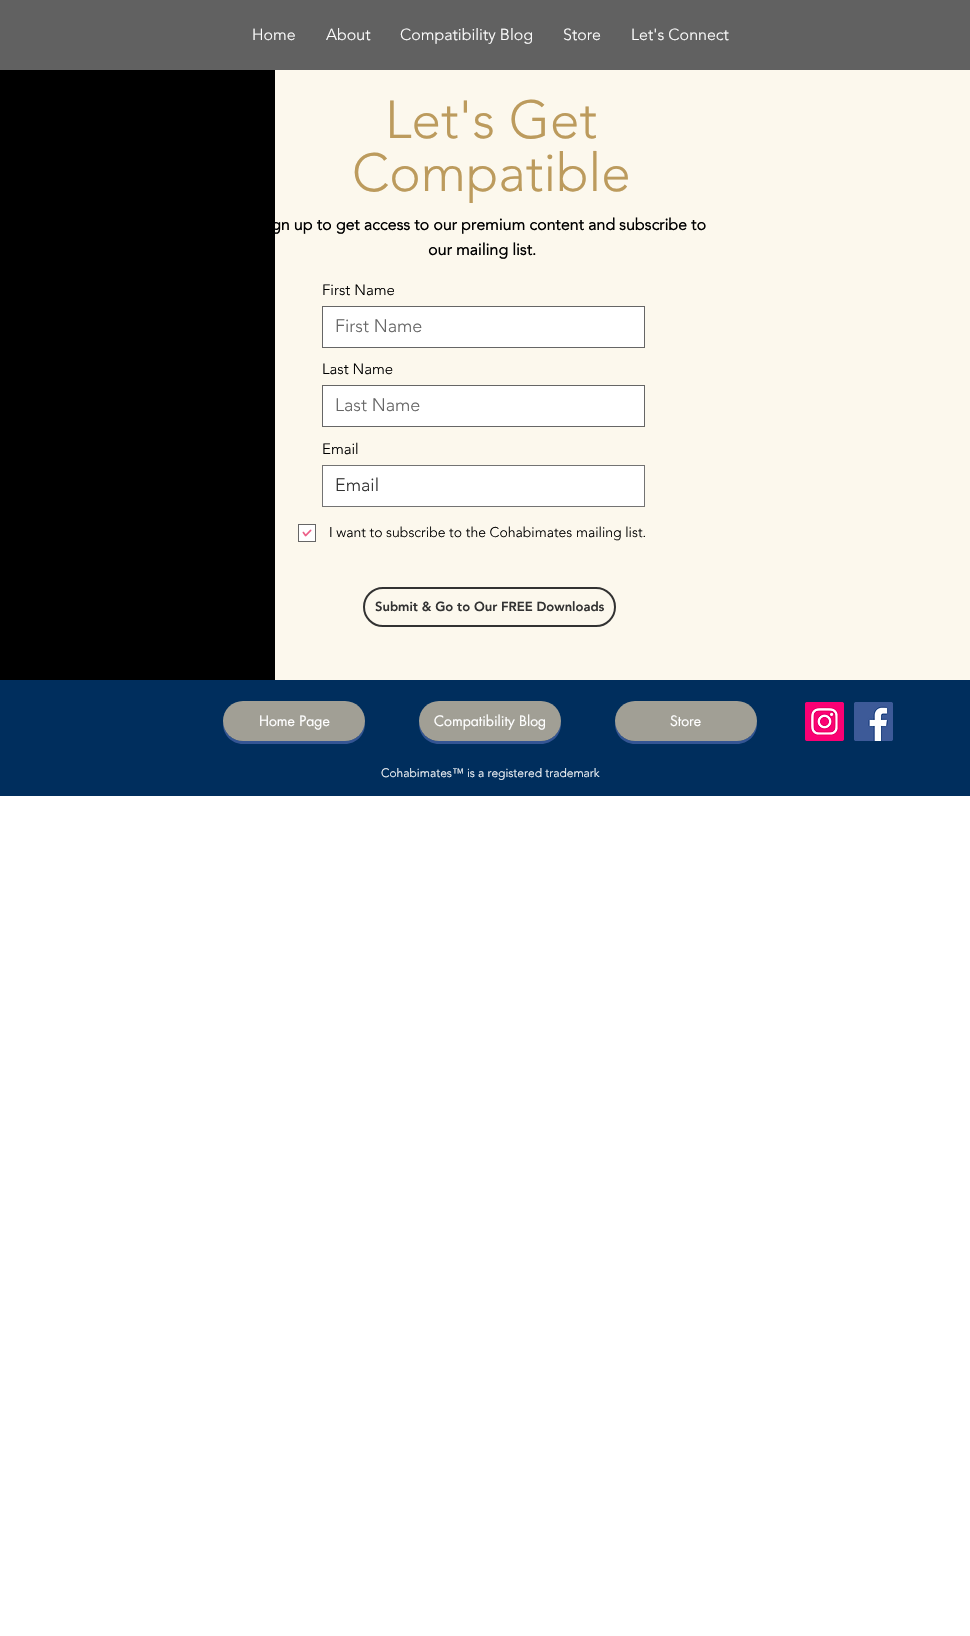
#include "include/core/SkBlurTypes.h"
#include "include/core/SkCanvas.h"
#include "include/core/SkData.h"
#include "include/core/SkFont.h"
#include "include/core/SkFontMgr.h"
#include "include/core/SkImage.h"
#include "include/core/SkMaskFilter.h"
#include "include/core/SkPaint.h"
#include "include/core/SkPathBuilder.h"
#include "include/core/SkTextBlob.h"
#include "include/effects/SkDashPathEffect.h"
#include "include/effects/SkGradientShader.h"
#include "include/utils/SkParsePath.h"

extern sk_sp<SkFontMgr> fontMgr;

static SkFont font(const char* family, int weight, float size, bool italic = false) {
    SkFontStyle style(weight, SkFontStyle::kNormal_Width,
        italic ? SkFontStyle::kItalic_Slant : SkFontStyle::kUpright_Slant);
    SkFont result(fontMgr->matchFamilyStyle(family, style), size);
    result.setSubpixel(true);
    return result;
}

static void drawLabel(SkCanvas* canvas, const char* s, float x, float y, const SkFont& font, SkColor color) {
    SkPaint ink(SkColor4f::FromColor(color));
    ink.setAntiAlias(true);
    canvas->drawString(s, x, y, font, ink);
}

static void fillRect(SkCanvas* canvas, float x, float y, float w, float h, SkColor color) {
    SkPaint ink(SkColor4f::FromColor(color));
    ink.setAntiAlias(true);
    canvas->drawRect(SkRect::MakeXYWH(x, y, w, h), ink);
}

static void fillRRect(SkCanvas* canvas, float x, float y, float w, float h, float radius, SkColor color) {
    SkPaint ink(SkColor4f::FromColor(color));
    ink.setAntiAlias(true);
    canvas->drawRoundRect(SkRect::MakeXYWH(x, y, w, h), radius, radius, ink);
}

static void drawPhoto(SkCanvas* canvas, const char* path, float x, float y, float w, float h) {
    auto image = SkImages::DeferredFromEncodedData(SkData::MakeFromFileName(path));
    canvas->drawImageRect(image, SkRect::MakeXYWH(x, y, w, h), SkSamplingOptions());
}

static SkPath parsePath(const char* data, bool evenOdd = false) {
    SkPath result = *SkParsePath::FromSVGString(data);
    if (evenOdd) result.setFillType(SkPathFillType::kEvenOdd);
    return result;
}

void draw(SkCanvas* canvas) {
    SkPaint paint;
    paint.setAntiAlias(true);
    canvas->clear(0xFFFFFFFF);
    fillRect(canvas, 0, 0, 970, 70, 0xFF616161);
    SkFont font1 = font("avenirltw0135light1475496", 300, 16);
    drawLabel(canvas, "Home", 252, 40, font1, 0xFFFFFFFF);
    drawLabel(canvas, "About", 326, 40, font1, 0xFFFFFFFF);
    drawLabel(canvas, "Compatibility Blog", 400, 40, font1, 0xFFFFFFFF);
    drawLabel(canvas, "Store", 563, 40, font1, 0xFFFFFFFF);
    drawLabel(canvas, "Let's Connect", 631, 40, font1, 0xFFFFFFFF);
    fillRect(canvas, 0, 70, 275, 610, 0xFF000000);
    fillRect(canvas, 275, 70, 695, 610, 0xFFFCF8ED);
    SkFont font2 = font("avenirltw0135light1475496", 300, 53);
    drawLabel(canvas, "Let's Get", 385, 138, font2, 0xFFBC9B5D);
    drawLabel(canvas, "Compatible", 352, 191, font2, 0xFFBC9B5D);
    SkFont font3 = font("avenirltw0135light1475496", 700, 16);
    drawLabel(canvas, "gn up to get access to our premium content and subscribe to", 271, 230, font3, 0xFF000000);
    drawLabel(canvas, "our mailing list.", 428, 255, font3, 0xFF000000);
    SkFont font4 = font("avenirltw0135light1475496", 300, 15);
    drawLabel(canvas, "First Name", 322, 295, font4, 0xFF000000);
    paint.setColor(0xFFFFFFFF);
    canvas->drawRect(SkRect::MakeXYWH(322.5f, 306.5f, 322, 41), paint);
    paint.setStroke(true);
    paint.setStrokeWidth(1);
    paint.setColor(0xFF666666);
    canvas->drawRect(SkRect::MakeXYWH(322.5f, 306.5f, 322, 41), paint);
    SkFont font5 = font("avenirltw0135light1475496", 300, 18);
    drawLabel(canvas, "First Name", 335, 332, font5, 0xFF666666);
    drawLabel(canvas, "Last Name", 322, 374, font4, 0xFF000000);
    paint.setStroke(false);
    paint.setColor(0xFFFFFFFF);
    canvas->drawRect(SkRect::MakeXYWH(322.5f, 385.5f, 322, 41), paint);
    paint.setStroke(true);
    paint.setColor(0xFF666666);
    canvas->drawRect(SkRect::MakeXYWH(322.5f, 385.5f, 322, 41), paint);
    drawLabel(canvas, "Last Name", 335, 411, font5, 0xFF666666);
    drawLabel(canvas, "Email", 322, 454, font4, 0xFF000000);
    paint.setStroke(false);
    paint.setColor(0xFFFFFFFF);
    canvas->drawRect(SkRect::MakeXYWH(322.5f, 465.5f, 322, 41), paint);
    paint.setStroke(true);
    paint.setColor(0xFF737373);
    canvas->drawRect(SkRect::MakeXYWH(322.5f, 465.5f, 322, 41), paint);
    drawLabel(canvas, "Email", 335, 491, font5, 0xFF333333);
    paint.setStroke(false);
    paint.setColor(0xFFFFFFFF);
    canvas->drawRect(SkRect::MakeXYWH(298.5f, 524.5f, 17, 17), paint);
    paint.setStroke(true);
    paint.setColor(0xFF666666);
    canvas->drawRect(SkRect::MakeXYWH(298.5f, 524.5f, 17, 17), paint);
    SkFont font6 = font("avenirltw0135light1475496", 300, 14);
    drawLabel(canvas, "I want to subscribe to the Cohabimates mailing list.", 329, 537, font6, 0xFF000000);
    drawPhoto(canvas, "assets/img1.png", 302, 529, 10, 8);
    paint.setStrokeWidth(2);
    paint.setColor(0xFF323232);
    canvas->drawRoundRect(SkRect::MakeXYWH(364, 588, 251, 38), 19, 19, paint);
    SkFont font7 = font("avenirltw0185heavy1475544", 900, 13);
    drawLabel(canvas, "Submit & Go to Our FREE Downloads", 375, 611, font7, 0xFF333333);
    fillRect(canvas, 0, 680, 970, 116, 0xFF002E5D);
    paint.setStroke(false);
    paint.setColor(0xFF345594);
    canvas->drawPath(parsePath("M223 722V724C223 735 232 744 243 744H345C356 744 365 735 365 724V722C364 733 356 741 345 741H243C232 741 224 733 223 722Z"), paint);
    fillRRect(canvas, 223, 701, 142, 40, 20, 0xFFA19F95);
    SkFont font8 = font("futura", 400, 14);
    drawLabel(canvas, "Home Page", 259, 726, font8, 0xFFFFFFFF);
    canvas->drawPath(parsePath("M419 722V724C419 735 428 744 439 744H541C552 744 561 735 561 724V722C560 733 552 741 541 741H439C428 741 420 733 419 722Z"), paint);
    fillRRect(canvas, 419, 701, 142, 40, 20, 0xFFA19F95);
    drawLabel(canvas, "Compatibility Blog", 434, 726, font8, 0xFFFFFFFF);
    canvas->drawPath(parsePath("M615 722V724C615 735 624 744 635 744H737C748 744 757 735 757 724V722C756 733 748 741 737 741H635C624 741 616 733 615 722Z"), paint);
    fillRRect(canvas, 615, 701, 142, 40, 20, 0xFFA19F95);
    drawLabel(canvas, "Store", 670, 726, font8, 0xFFFFFFFF);
    drawPhoto(canvas, "assets/img2.png", 805, 702, 39, 39);
    drawPhoto(canvas, "assets/img3.png", 854, 702, 39, 39);
    SkFont font9 = font("avenirltw0135light1475496", 300, 12);
    drawLabel(canvas, "Cohabimates™ is a registered trademark", 381, 777, font9, 0xFFFFFFFF);
}
